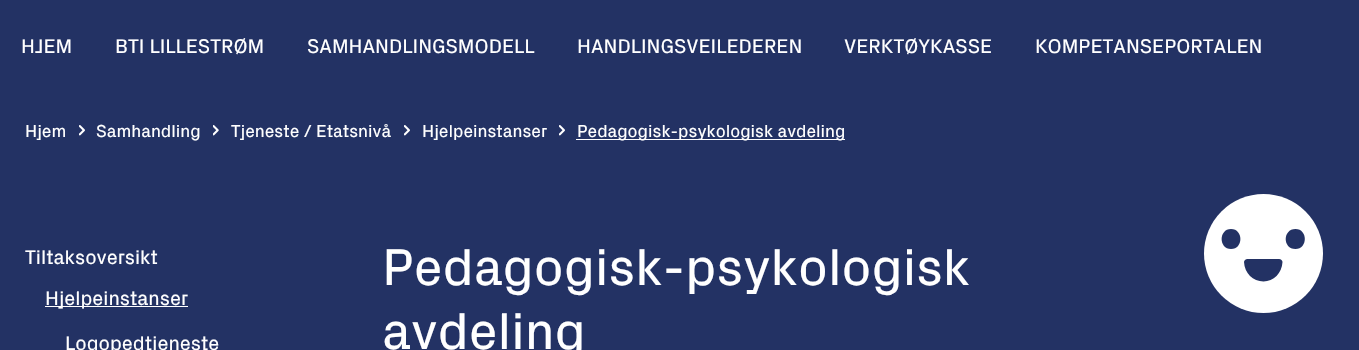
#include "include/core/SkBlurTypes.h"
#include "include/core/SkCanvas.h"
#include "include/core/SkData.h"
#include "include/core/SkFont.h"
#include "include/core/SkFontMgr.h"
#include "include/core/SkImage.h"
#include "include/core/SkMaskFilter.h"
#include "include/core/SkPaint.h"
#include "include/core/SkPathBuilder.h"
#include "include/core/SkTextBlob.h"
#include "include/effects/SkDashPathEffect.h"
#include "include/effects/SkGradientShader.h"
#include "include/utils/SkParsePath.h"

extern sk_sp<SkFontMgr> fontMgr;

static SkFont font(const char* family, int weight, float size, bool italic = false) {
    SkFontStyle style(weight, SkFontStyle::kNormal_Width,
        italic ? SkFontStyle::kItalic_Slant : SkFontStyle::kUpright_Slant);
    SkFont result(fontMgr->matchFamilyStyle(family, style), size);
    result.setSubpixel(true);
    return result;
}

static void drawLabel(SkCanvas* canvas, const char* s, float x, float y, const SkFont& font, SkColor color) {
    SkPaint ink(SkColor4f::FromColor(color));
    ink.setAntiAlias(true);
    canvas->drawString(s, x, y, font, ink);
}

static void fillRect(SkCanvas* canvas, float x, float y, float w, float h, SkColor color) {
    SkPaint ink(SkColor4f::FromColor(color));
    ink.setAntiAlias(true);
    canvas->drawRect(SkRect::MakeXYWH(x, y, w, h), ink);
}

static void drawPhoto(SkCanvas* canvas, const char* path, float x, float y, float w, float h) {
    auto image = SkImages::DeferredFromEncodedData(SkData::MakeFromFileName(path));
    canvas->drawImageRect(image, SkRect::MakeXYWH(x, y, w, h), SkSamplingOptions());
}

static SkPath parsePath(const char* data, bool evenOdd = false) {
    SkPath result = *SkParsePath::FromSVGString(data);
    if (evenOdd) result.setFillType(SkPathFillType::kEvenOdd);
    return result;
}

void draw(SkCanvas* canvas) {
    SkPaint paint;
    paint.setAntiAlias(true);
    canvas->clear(0xFF233264);
    SkFont font1 = font("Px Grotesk", 400, 20);
    drawLabel(canvas, "HJEM", 21, 53, font1, 0xFFFFFFFF);
    drawLabel(canvas, "BTI LILLESTRØM", 115, 53, font1, 0xFFFFFFFF);
    drawLabel(canvas, "SAMHANDLINGSMODELL", 307, 53, font1, 0xFFFFFFFF);
    drawLabel(canvas, "HANDLINGSVEILEDEREN", 577, 53, font1, 0xFFFFFFFF);
    drawLabel(canvas, "VERKTØYKASSE", 844, 53, font1, 0xFFFFFFFF);
    drawLabel(canvas, "KOMPETANSEPORTALEN", 1035, 53, font1, 0xFFFFFFFF);
    SkFont font2 = font("Px Grotesk", 400, 17.5f);
    drawLabel(canvas, "Hjem", 25, 137, font2, 0xFFFFFFFF);
    drawPhoto(canvas, "assets/img1.png", 79, 125, 6, 11);
    drawLabel(canvas, "Samhandling", 96, 137, font2, 0xFFFFFFFF);
    drawPhoto(canvas, "assets/img2.png", 213, 125, 6, 11);
    drawLabel(canvas, "Tjeneste / Etatsnivå", 231, 137, font2, 0xFFFFFFFF);
    drawPhoto(canvas, "assets/img1.png", 404, 125, 6, 11);
    drawLabel(canvas, "Hjelpeinstanser", 422, 137, font2, 0xFFFFFFFF);
    drawPhoto(canvas, "assets/img1.png", 559, 125, 6, 11);
    fillRect(canvas, 576, 139, 269, 1, 0xFFFFFFFF);
    drawLabel(canvas, "Pedagogisk-psykologisk avdeling", 577, 137, font2, 0xFFFFFFFF);
    drawLabel(canvas, "Tiltaksoversikt", 25, 264, font1, 0xFFFFFFFF);
    fillRect(canvas, 45, 306, 143, 1, 0xFFFFFFFF);
    drawLabel(canvas, "Hjelpeinstanser", 45, 305, font1, 0xFFFFFFFF);
    drawLabel(canvas, "Logopedtjeneste", 65, 350, font1, 0xFFFFFFFF);
    SkFont font3 = font("Px Grotesk", 400, 52.5f);
    drawLabel(canvas, "Pedagogisk-psykologisk", 382, 285, font3, 0xFFFFFFFF);
    drawLabel(canvas, "avdeling", 382, 349, font3, 0xFFFFFFFF);
    paint.setColor(0xFFFFFFFF);
    canvas->drawCircle(1263.5f, 253.5f, 59.5f, paint);
    paint.setColor(0xFF233264);
    canvas->drawPath(parsePath("M1231 249C1243.5 249 1243.5 229 1231 229C1218.5 229 1218.5 249 1231 249Z"), paint);
    canvas->drawPath(parsePath("M1295.5 249C1308 249 1308 229 1295.5 229C1282.5 229 1282.5 249 1295.5 249ZM1279 259H1247.5C1245.5 259 1244 260.5 1244 262C1244.5 273 1253 281.5 1263.5 281.5C1273.5 281.5 1282 273 1282.5 262C1282.5 260.5 1281 259 1279 259Z"), paint);
}
